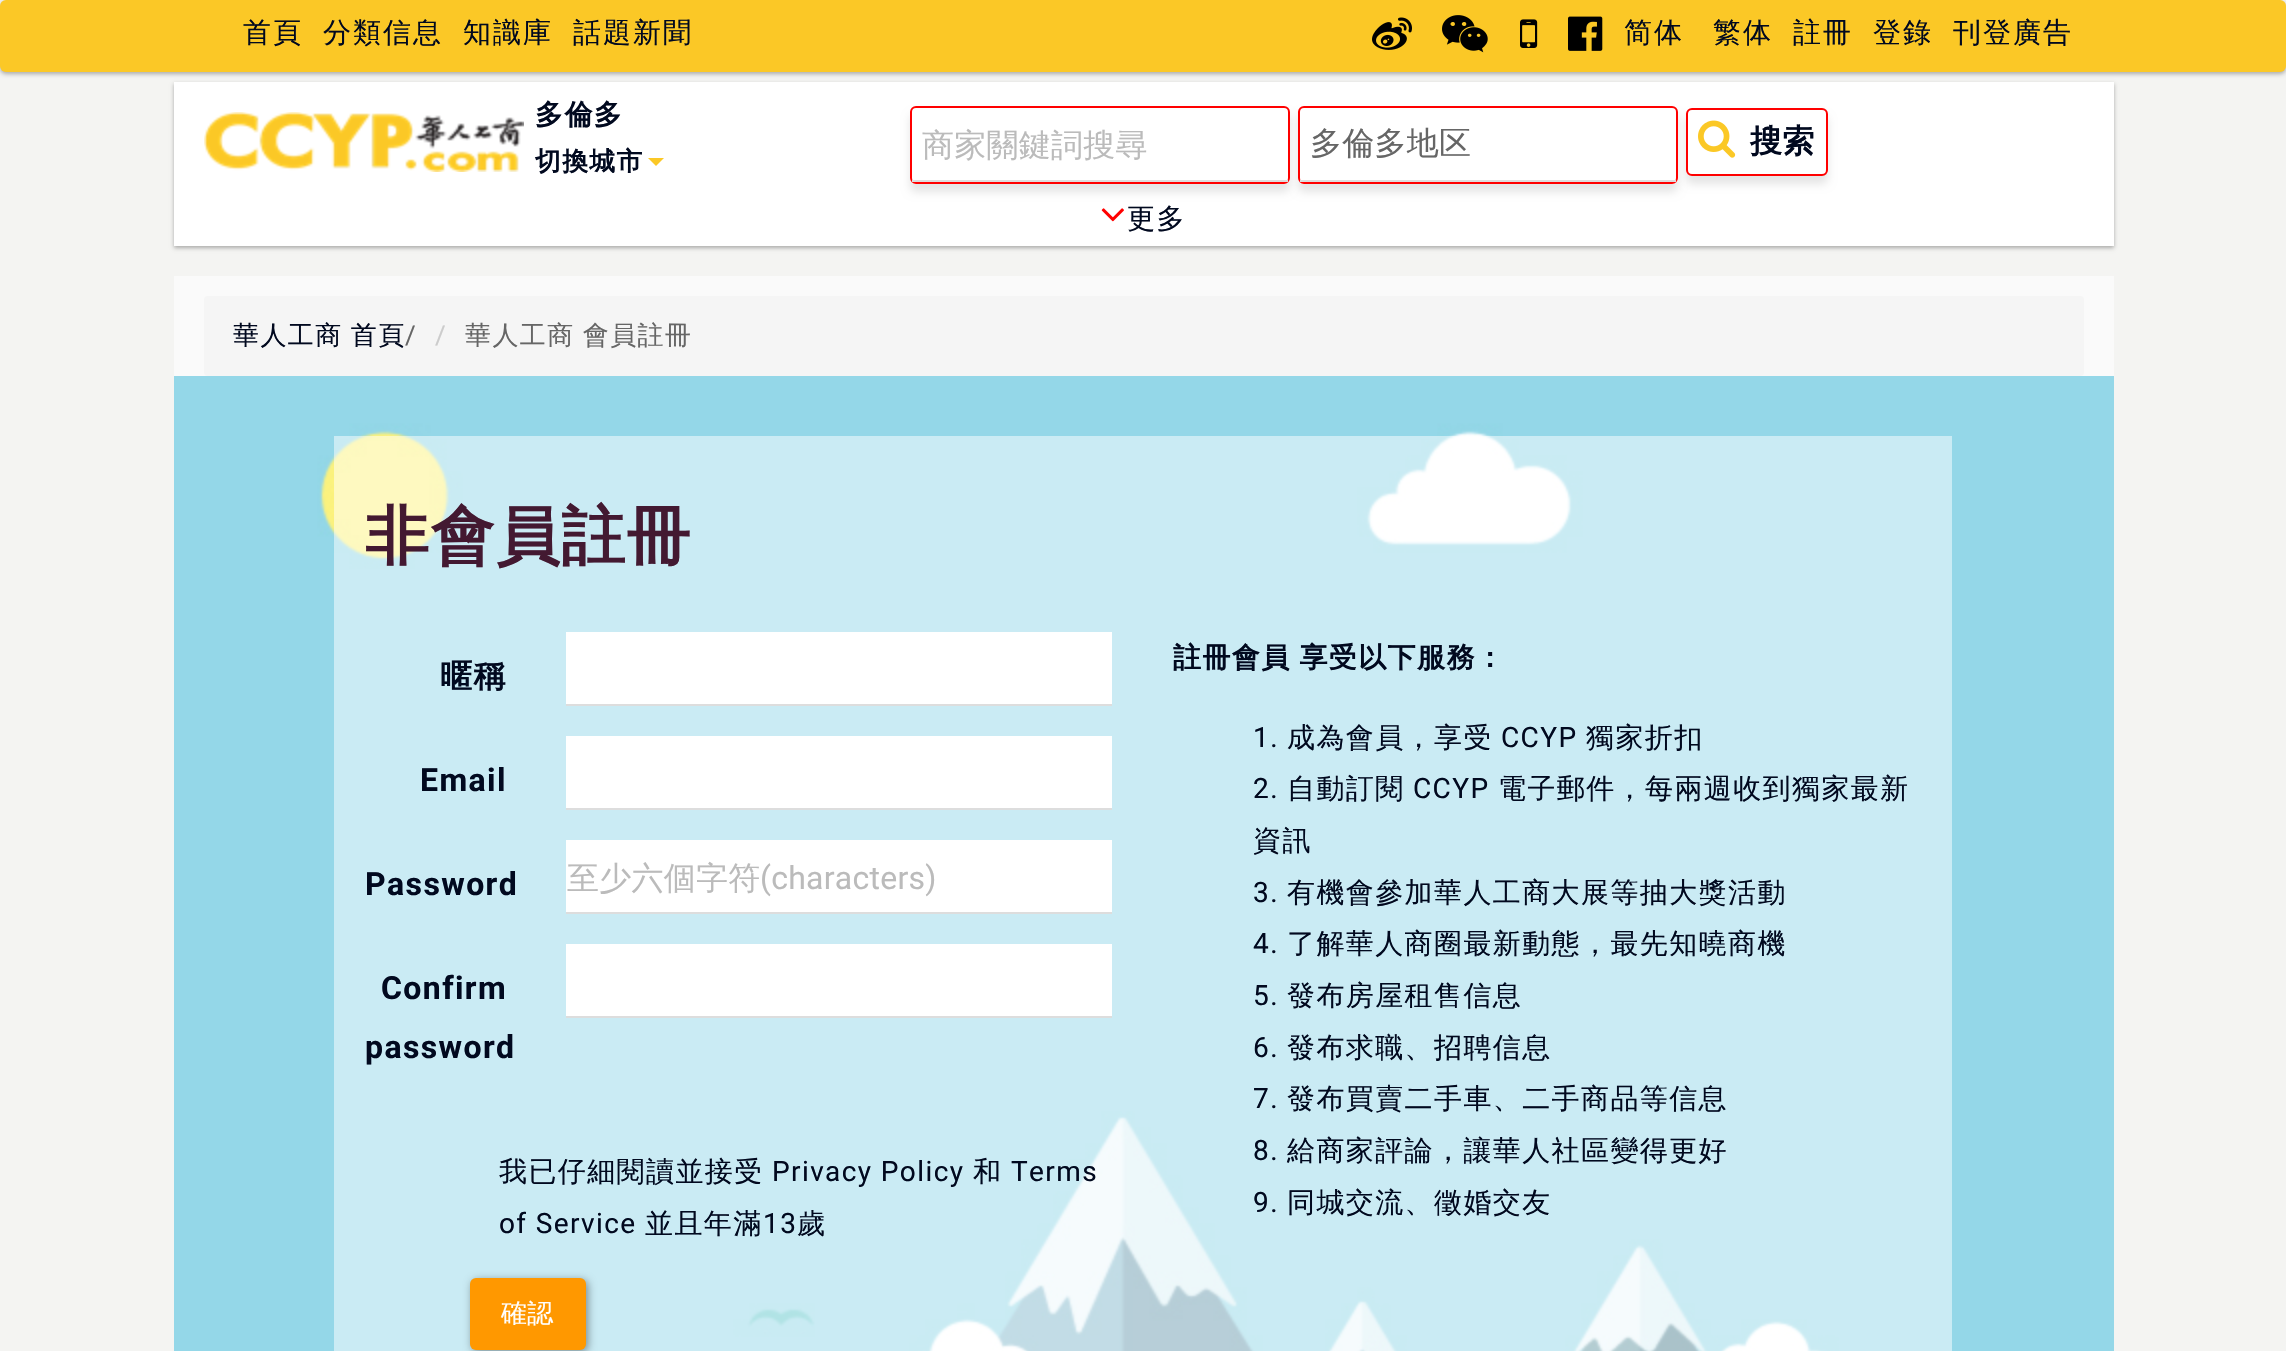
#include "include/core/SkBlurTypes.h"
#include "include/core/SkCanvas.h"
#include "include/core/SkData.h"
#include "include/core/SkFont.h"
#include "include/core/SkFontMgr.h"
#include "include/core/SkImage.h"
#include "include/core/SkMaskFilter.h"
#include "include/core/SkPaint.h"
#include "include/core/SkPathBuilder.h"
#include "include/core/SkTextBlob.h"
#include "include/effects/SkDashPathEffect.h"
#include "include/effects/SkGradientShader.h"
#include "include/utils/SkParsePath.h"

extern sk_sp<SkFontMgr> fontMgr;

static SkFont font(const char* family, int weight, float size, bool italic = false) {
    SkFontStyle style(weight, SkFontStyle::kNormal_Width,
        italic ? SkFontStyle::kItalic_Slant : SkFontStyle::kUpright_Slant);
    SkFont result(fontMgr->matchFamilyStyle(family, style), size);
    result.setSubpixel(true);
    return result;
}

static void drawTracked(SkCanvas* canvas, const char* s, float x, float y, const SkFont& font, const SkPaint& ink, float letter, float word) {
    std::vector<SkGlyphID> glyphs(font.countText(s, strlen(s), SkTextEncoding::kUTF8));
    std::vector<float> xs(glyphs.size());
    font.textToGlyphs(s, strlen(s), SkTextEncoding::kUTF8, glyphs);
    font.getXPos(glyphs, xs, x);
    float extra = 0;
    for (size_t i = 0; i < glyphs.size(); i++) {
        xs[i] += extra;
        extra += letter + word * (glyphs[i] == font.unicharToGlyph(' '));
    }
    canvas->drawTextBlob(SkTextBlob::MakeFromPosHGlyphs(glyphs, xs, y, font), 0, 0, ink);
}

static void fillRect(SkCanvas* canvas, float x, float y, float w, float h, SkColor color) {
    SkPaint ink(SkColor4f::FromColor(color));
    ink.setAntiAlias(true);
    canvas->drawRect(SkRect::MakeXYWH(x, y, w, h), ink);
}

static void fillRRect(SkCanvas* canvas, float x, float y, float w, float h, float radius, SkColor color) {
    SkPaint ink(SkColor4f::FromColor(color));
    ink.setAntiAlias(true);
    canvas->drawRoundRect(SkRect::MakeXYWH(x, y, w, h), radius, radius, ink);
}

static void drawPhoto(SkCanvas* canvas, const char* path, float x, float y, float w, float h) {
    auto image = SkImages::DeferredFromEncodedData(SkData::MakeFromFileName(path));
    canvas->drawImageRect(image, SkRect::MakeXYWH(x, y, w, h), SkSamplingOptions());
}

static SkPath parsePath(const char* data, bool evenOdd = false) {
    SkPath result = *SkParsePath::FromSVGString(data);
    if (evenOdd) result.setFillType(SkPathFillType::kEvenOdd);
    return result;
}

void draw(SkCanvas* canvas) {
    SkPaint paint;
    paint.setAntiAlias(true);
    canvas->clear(0xFFF4F4F2);
    paint.setColor(0x4D000000);
    paint.setMaskFilter(SkMaskFilter::MakeBlur(kNormal_SkBlurStyle, 2));
    canvas->drawRoundRect(SkRect::MakeXYWH(0, 2, 2286, 72), 6, 6, paint);
    paint.setMaskFilter(nullptr);
    fillRRect(canvas, 0, 0, 2286, 72, 6, 0xFFFBC826);
    SkFont font1 = font("WenQuanYi Zen Hei", 500, 28);
    paint.setColor(0xFF01091F);
    drawTracked(canvas, "首頁", 243, 42, font1, paint, 2, 0);
    drawTracked(canvas, "分類信息", 323, 42, font1, paint, 2, 0);
    drawTracked(canvas, "知識庫", 463, 42, font1, paint, 2, 0);
    drawTracked(canvas, "話題新聞", 573, 42, font1, paint, 2, 0);
    drawPhoto(canvas, "assets/img1.png", 1372, 17, 40, 33);
    drawPhoto(canvas, "assets/img2.png", 1442, 15, 46, 38);
    drawPhoto(canvas, "assets/img3.png", 1520, 19, 18, 29);
    drawPhoto(canvas, "assets/img4.png", 1568, 16, 35, 35);
    drawTracked(canvas, "简体", 1624, 42, font1, paint, 2, 0);
    drawTracked(canvas, "繁体", 1713, 42, font1, paint, 2, 0);
    drawTracked(canvas, "註冊", 1793, 42, font1, paint, 2, 0);
    drawTracked(canvas, "登錄", 1873, 42, font1, paint, 2, 0);
    drawTracked(canvas, "刊登廣告", 1953, 42, font1, paint, 2, 0);
    paint.setColor(0x4D000000);
    paint.setMaskFilter(SkMaskFilter::MakeBlur(kNormal_SkBlurStyle, 2));
    canvas->drawRect(SkRect::MakeXYWH(174, 84, 1940, 164), paint);
    paint.setMaskFilter(nullptr);
    fillRect(canvas, 174, 82, 1940, 164, 0xFFFFFFFF);
    drawPhoto(canvas, "assets/img5.png", 204, 112, 320, 60);
    SkFont font2 = font("WenQuanYi Zen Hei", 700, 28);
    paint.setColor(0xFF01091F);
    drawTracked(canvas, "多倫多", 535, 124, font2, paint, 1.4f, 0);
    SkFont font3 = font("WenQuanYi Zen Hei", 700, 25.75f);
    drawTracked(canvas, "切換城市", 535, 170, font3, paint, 1.4f, 0);
    paint.setColor(0xFFFBC826);
    canvas->drawPath(parsePath("M648 158H664L656 166Z"), paint);
    canvas->save();
    canvas->clipPath(parsePath("M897 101H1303V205H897ZM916 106H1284C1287.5 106 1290 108.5 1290 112V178C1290 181.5 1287.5 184 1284 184H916C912.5 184 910 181.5 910 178V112C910 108.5 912.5 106 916 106Z", true), true);
    paint.setColor(0x1A000000);
    paint.setMaskFilter(SkMaskFilter::MakeBlur(kNormal_SkBlurStyle, 4));
    canvas->drawRoundRect(SkRect::MakeXYWH(910, 114, 380, 78), 6, 6, paint);
    paint.setMaskFilter(nullptr);
    canvas->restore();
    paint.setStroke(true);
    paint.setStrokeWidth(2);
    paint.setColor(0xFFFF0000);
    canvas->drawRoundRect(SkRect::MakeXYWH(911, 107, 378, 76), 5, 5, paint);
    fillRect(canvas, 912, 180, 376, 2, 0xFFDDDDDD);
    SkFont font4 = font("WenQuanYi Zen Hei", 500, 32);
    paint.setStroke(false);
    paint.setColor(0xFFBBBBBB);
    drawTracked(canvas, "商家關鍵詞搜尋", 922, 156, font4, paint, 0.25f, 0);
    canvas->save();
    canvas->clipPath(parsePath("M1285 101H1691V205H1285ZM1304 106H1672C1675.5 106 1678 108.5 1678 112V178C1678 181.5 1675.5 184 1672 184H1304C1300.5 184 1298 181.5 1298 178V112C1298 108.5 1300.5 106 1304 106Z", true), true);
    paint.setColor(0x1A000000);
    paint.setMaskFilter(SkMaskFilter::MakeBlur(kNormal_SkBlurStyle, 4));
    canvas->drawRoundRect(SkRect::MakeXYWH(1298, 114, 380, 78), 6, 6, paint);
    paint.setMaskFilter(nullptr);
    canvas->restore();
    paint.setStroke(true);
    paint.setColor(0xFFFF0000);
    canvas->drawRoundRect(SkRect::MakeXYWH(1299, 107, 378, 76), 5, 5, paint);
    fillRect(canvas, 1300, 180, 376, 2, 0xFFDDDDDD);
    paint.setStroke(false);
    paint.setColor(0xFF666666);
    drawTracked(canvas, "多倫多地区", 1310, 154, font4, paint, 0.25f, 0);
    paint.setColor(0x1A000000);
    paint.setMaskFilter(SkMaskFilter::MakeBlur(kNormal_SkBlurStyle, 4));
    canvas->drawRoundRect(SkRect::MakeXYWH(1686, 116, 142, 68), 6, 6, paint);
    paint.setMaskFilter(nullptr);
    paint.setColor(0xFFFFFFFF);
    canvas->drawRoundRect(SkRect::MakeXYWH(1687, 109, 140, 66), 5, 5, paint);
    paint.setStroke(true);
    paint.setColor(0xFFFF0000);
    canvas->drawRoundRect(SkRect::MakeXYWH(1687, 109, 140, 66), 5, 5, paint);
    drawPhoto(canvas, "assets/img6.png", 1698, 120, 38, 38);
    SkFont font5 = font("WenQuanYi Zen Hei", 700, 32);
    paint.setStroke(false);
    paint.setColor(0xFF01091F);
    drawTracked(canvas, "搜索", 1750, 152, font5, paint, 0.25f, 0);
    drawPhoto(canvas, "assets/img7.png", 1101, 208, 23, 14);
    drawTracked(canvas, "更多", 1127, 228, font1, paint, 1.4f, 0);
    fillRect(canvas, 174, 276, 1940, 100, 0xFFFAFAFA);
    fillRRect(canvas, 204, 296, 1880, 80, 4, 0xFFF5F5F5);
    SkFont font6 = font("WenQuanYi Zen Hei", 500, 26);
    drawTracked(canvas, "華人工商 首頁", 233, 344, font6, paint, 1.4f, -1);
    SkFont font7 = font("Roboto", 400, 26);
    paint.setColor(0xFF666666);
    drawTracked(canvas, "/", 405, 344, font7, paint, 1.4f, 0);
    paint.setColor(0xFFCCCCCC);
    drawTracked(canvas, "/", 435, 344, font7, paint, 1.4f, 0);
    paint.setColor(0xFF666666);
    drawTracked(canvas, "華人工商 會員註冊", 465, 344, font6, paint, 1.4f, -1);
    drawPhoto(canvas, "assets/img8.png", 174, 376, 1940, 975);
    fillRect(canvas, 334, 436, 1618, 915, 0x80FFFFFF);
    SkFont font8 = font("WenQuanYi Zen Hei", 700, 64);
    paint.setColor(0xFF431931);
    drawTracked(canvas, "非會員註冊", 365, 558, font8, paint, 1.4f, 0);
    paint.setColor(0xFF01091F);
    drawTracked(canvas, "暱稱", 440, 687, font5, paint, 1.4f, 0);
    fillRect(canvas, 566, 632, 546, 72, 0xFFFFFFFF);
    fillRect(canvas, 566, 704, 546, 2, 0xFFDDDDDD);
    SkFont font9 = font("Roboto", 700, 32);
    drawTracked(canvas, "Email", 420, 791, font9, paint, 1.4f, 0);
    fillRect(canvas, 566, 736, 546, 72, 0xFFFFFFFF);
    fillRect(canvas, 566, 808, 546, 2, 0xFFDDDDDD);
    drawTracked(canvas, "Password", 365, 895, font9, paint, 1.4f, 0);
    fillRect(canvas, 566, 840, 546, 72, 0xFFFFFFFF);
    fillRect(canvas, 566, 912, 546, 2, 0xFFDDDDDD);
    paint.setColor(0xFFBBBBBB);
    drawTracked(canvas, "至少六個字符", 567, 889, font4, paint, 0.25f, 0);
    SkFont font10 = font("Roboto", 400, 32);
    drawTracked(canvas, "(characters)", 760, 889, font10, paint, 0.25f, 0);
    paint.setColor(0xFF01091F);
    drawTracked(canvas, "Confirm", 381, 999, font9, paint, 1.4f, 0);
    drawTracked(canvas, "password", 365, 1058, font9, paint, 1.4f, 0);
    fillRect(canvas, 566, 944, 546, 72, 0xFFFFFFFF);
    fillRect(canvas, 566, 1016, 546, 2, 0xFFDDDDDD);
    drawTracked(canvas, "我已仔細閱讀並接受", 499, 1181, font1, paint, 1.4f, 0);
    SkFont font11 = font("Roboto", 400, 28);
    drawTracked(canvas, "Privacy Policy", 772, 1181, font11, paint, 1.4f, 0);
    drawTracked(canvas, "和", 973, 1181, font1, paint, 1.4f, 0);
    drawTracked(canvas, "Terms", 1011, 1181, font11, paint, 1.4f, 0);
    drawTracked(canvas, "of Service", 499, 1233, font11, paint, 1.4f, 0);
    drawTracked(canvas, "並且年滿", 645, 1233, font1, paint, 1.4f, 0);
    drawTracked(canvas, "13", 763, 1233, font11, paint, 1.4f, 0);
    drawTracked(canvas, "歲", 797, 1233, font1, paint, 1.4f, 0);
    paint.setColor(0x66000000);
    paint.setMaskFilter(SkMaskFilter::MakeBlur(kNormal_SkBlurStyle, 4));
    canvas->drawRoundRect(SkRect::MakeXYWH(472, 1280, 116, 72), 6, 6, paint);
    paint.setMaskFilter(nullptr);
    fillRRect(canvas, 470, 1278, 116, 72, 6, 0xFFFF9800);
    paint.setColor(0xFFFFFFFF);
    drawTracked(canvas, "確認", 501, 1322, font6, paint, 0.25f, 0);
    paint.setColor(0xFF01091F);
    drawTracked(canvas, "註冊會員 享受以下服務：", 1173, 667, font2, paint, 1.4f, -1);
    drawTracked(canvas, "1.", 1253, 747, font11, paint, 1.4f, 0);
    drawTracked(canvas, "成為會員，享受", 1287, 747, font1, paint, 1.4f, 0);
    drawTracked(canvas, "CCYP", 1501, 747, font11, paint, 1.4f, 0);
    drawTracked(canvas, "獨家折扣", 1586, 747, font1, paint, 1.4f, 0);
    drawTracked(canvas, "2.", 1253, 798, font11, paint, 1.4f, 0);
    drawTracked(canvas, "自動訂閱", 1287, 798, font1, paint, 1.4f, 0);
    drawTracked(canvas, "CCYP", 1413, 798, font11, paint, 1.4f, 0);
    drawTracked(canvas, "電子郵件，每兩週收到獨家最新", 1498, 798, font1, paint, 1.4f, 0);
    drawTracked(canvas, "資訊", 1253, 850, font1, paint, 1.4f, 0);
    drawTracked(canvas, "3.", 1253, 902, font11, paint, 1.4f, 0);
    drawTracked(canvas, "有機會參加華人工商大展等抽大獎活動", 1287, 902, font1, paint, 1.4f, 0);
    drawTracked(canvas, "4.", 1253, 953, font11, paint, 1.4f, 0);
    drawTracked(canvas, "了解華人商圈最新動態，最先知曉商機", 1287, 953, font1, paint, 1.4f, 0);
    drawTracked(canvas, "5.", 1253, 1005, font11, paint, 1.4f, 0);
    drawTracked(canvas, "發布房屋租售信息", 1287, 1005, font1, paint, 1.4f, 0);
    drawTracked(canvas, "6.", 1253, 1057, font11, paint, 1.4f, 0);
    drawTracked(canvas, "發布求職、招聘信息", 1287, 1057, font1, paint, 1.4f, 0);
    drawTracked(canvas, "7.", 1253, 1108, font11, paint, 1.4f, 0);
    drawTracked(canvas, "發布買賣二手車、二手商品等信息", 1287, 1108, font1, paint, 1.4f, 0);
    drawTracked(canvas, "8.", 1253, 1160, font11, paint, 1.4f, 0);
    drawTracked(canvas, "給商家評論，讓華人社區變得更好", 1287, 1160, font1, paint, 1.4f, 0);
    drawTracked(canvas, "9.", 1253, 1212, font11, paint, 1.4f, 0);
    drawTracked(canvas, "同城交流、徵婚交友", 1287, 1212, font1, paint, 1.4f, 0);
}
